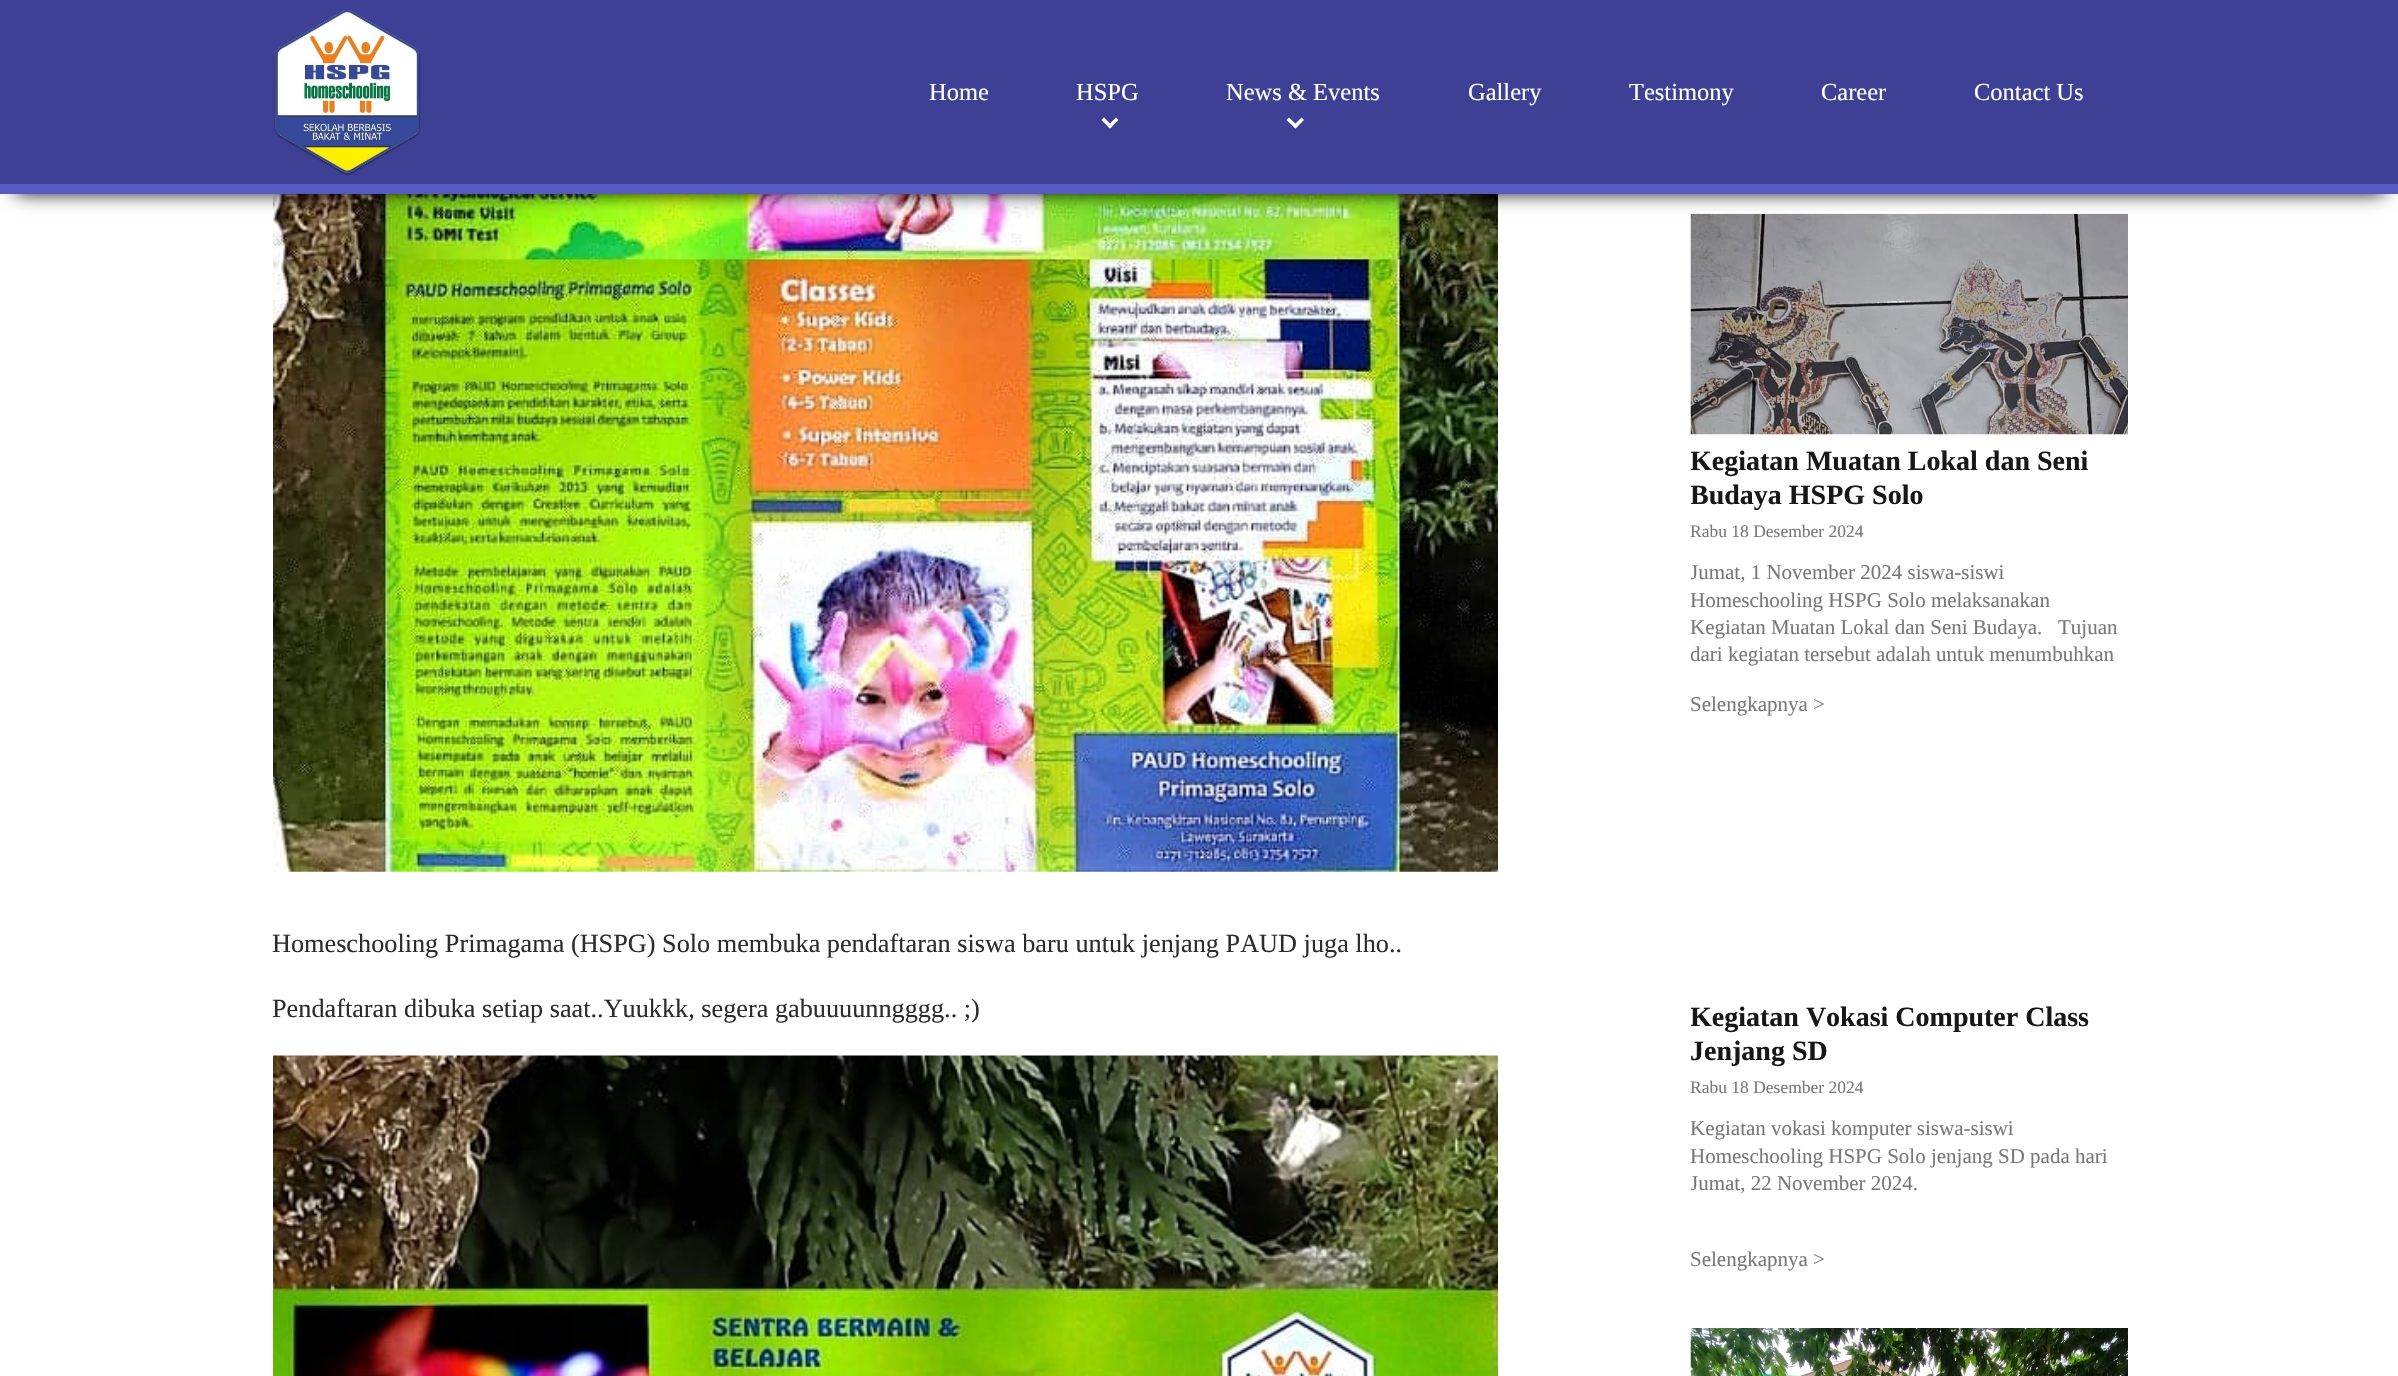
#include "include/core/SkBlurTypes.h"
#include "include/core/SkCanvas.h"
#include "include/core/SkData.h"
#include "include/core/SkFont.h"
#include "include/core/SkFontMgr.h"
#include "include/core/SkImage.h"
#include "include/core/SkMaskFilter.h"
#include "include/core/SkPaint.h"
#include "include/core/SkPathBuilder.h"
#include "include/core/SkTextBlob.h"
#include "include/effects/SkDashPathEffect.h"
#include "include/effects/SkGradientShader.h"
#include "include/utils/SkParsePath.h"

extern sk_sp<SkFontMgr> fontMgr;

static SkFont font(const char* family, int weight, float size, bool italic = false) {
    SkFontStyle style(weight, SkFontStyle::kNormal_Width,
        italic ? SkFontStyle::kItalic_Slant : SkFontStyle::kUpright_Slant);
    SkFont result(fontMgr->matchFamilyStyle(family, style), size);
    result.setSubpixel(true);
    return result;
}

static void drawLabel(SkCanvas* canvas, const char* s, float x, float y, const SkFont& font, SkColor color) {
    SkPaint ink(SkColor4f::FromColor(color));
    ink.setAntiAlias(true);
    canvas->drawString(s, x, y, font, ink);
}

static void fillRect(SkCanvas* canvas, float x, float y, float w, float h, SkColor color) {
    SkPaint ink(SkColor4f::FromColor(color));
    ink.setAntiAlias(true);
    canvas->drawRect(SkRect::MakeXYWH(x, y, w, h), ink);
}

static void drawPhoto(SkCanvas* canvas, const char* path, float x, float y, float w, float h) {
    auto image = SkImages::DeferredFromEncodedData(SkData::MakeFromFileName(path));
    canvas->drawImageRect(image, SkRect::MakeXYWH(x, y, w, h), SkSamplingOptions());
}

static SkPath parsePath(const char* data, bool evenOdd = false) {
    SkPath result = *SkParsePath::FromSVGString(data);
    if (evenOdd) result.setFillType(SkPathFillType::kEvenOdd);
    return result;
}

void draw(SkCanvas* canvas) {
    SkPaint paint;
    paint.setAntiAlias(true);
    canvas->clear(0xFFFFFFFF);
    drawPhoto(canvas, "assets/img2.png", 273, 194, 1225, 678);
    drawPhoto(canvas, "assets/img4.png", 1690, 213, 438, 222);
    paint.setColor(0xFF000000);
    paint.setMaskFilter(SkMaskFilter::MakeBlur(kNormal_SkBlurStyle, 9));
    canvas->drawRect(SkRect::MakeXYWH(16, 30, 2368, 163), paint);
    paint.setMaskFilter(nullptr);
    fillRect(canvas, 0, 0, 2398, 184, 0xFF3E4095);
    fillRect(canvas, 0, 184, 2398, 10, 0xFF585AC4);
    drawPhoto(canvas, "assets/img1.png", 274, 10, 147, 166);
    SkFont font1 = font("Liberation Serif", 400, 24.5f);
    drawLabel(canvas, "Home", 929, 100, font1, 0xFFFFFFFF);
    drawLabel(canvas, "HSPG", 1076, 100, font1, 0xFFFFFFFF);
    paint.setColor(0xFFFFFFFF);
    canvas->drawPath(parsePath("M1116 117.5L1118.5 120L1110 128.5L1107.5 126Z"), paint);
    canvas->drawPath(parsePath("M1104 117.5L1112.5 126L1110 128.5L1101.5 120Z"), paint);
    drawLabel(canvas, "News & Events", 1226, 100, font1, 0xFFFFFFFF);
    canvas->drawPath(parsePath("M1301.5 117.5L1304 120L1295.5 128.5L1293 126Z"), paint);
    canvas->drawPath(parsePath("M1289 117.5L1298 126L1295.5 128.5L1286.5 120Z"), paint);
    drawLabel(canvas, "Gallery", 1468, 100, font1, 0xFFFFFFFF);
    drawLabel(canvas, "Testimony", 1629, 100, font1, 0xFFFFFFFF);
    drawLabel(canvas, "Career", 1821, 100, font1, 0xFFFFFFFF);
    drawLabel(canvas, "Contact Us", 1974, 100, font1, 0xFFFFFFFF);
    SkFont font2 = font("Liberation Serif", 400, 26.25f);
    drawLabel(canvas, "Homeschooling Primagama (HSPG) Solo membuka pendaftaran siswa baru untuk jenjang PAUD juga lho..", 272, 952, font2, 0xFF2B2C2E);
    drawLabel(canvas, "Pendaftaran dibuka setiap saat..Yuukkk, segera gabuuuunngggg.. ;)", 272, 1017, font2, 0xFF2B2C2E);
    drawPhoto(canvas, "assets/img3.png", 273, 1055, 1225, 321);
    canvas->save();
    canvas->clipRect(SkRect::MakeXYWH(1691, 443, 437, 70));
    SkFont font3 = font("Liberation Serif", 700, 28);
    drawLabel(canvas, "Kegiatan Muatan Lokal dan Seni", 1690, 470, font3, 0xFF171717);
    drawLabel(canvas, "Budaya HSPG Solo", 1690, 504, font3, 0xFF171717);
    canvas->restore();
    SkFont font4 = font("Liberation Serif", 400, 17.5f);
    drawLabel(canvas, "Rabu 18 Desember 2024", 1690, 537, font4, 0xFF787878);
    canvas->save();
    canvas->clipRect(SkRect::MakeXYWH(1691, 560, 437, 114));
    SkFont font5 = font("Liberation Serif", 400, 21);
    drawLabel(canvas, "Jumat, 1 November 2024 siswa-siswi", 1690, 579, font5, 0xFF787878);
    canvas->restore();
    drawLabel(canvas, "Homeschooling HSPG Solo melaksanakan", 1690, 607, font5, 0xFF787878);
    drawLabel(canvas, "Kegiatan Muatan Lokal dan Seni Budaya.", 1690, 634, font5, 0xFF787878);
    drawLabel(canvas, "Tujuan", 2058, 634, font5, 0xFF787878);
    canvas->save();
    canvas->clipRect(SkRect::MakeXYWH(1691, 560, 437, 114));
    drawLabel(canvas, "dari kegiatan tersebut adalah untuk menumbuhkan", 1690, 661, font5, 0xFF787878);
    canvas->restore();
    drawLabel(canvas, "Selengkapnya >", 1690, 711, font5, 0xFF787878);
    canvas->save();
    canvas->clipRect(SkRect::MakeXYWH(1691, 999, 437, 69));
    drawLabel(canvas, "Kegiatan Vokasi Computer Class", 1690, 1026, font3, 0xFF171717);
    drawLabel(canvas, "Jenjang SD", 1690, 1060, font3, 0xFF171717);
    canvas->restore();
    drawLabel(canvas, "Rabu 18 Desember 2024", 1690, 1093, font4, 0xFF787878);
    drawLabel(canvas, "Kegiatan vokasi komputer siswa-siswi", 1690, 1135, font5, 0xFF787878);
    drawLabel(canvas, "Homeschooling HSPG Solo jenjang SD pada hari", 1690, 1163, font5, 0xFF787878);
    canvas->save();
    canvas->clipRect(SkRect::MakeXYWH(1691, 1117, 437, 113));
    drawLabel(canvas, "Jumat, 22 November 2024.", 1690, 1190, font5, 0xFF787878);
    canvas->restore();
    drawLabel(canvas, "Selengkapnya >", 1690, 1266, font5, 0xFF787878);
    drawPhoto(canvas, "assets/img5.png", 1690, 1327, 438, 49);
}
